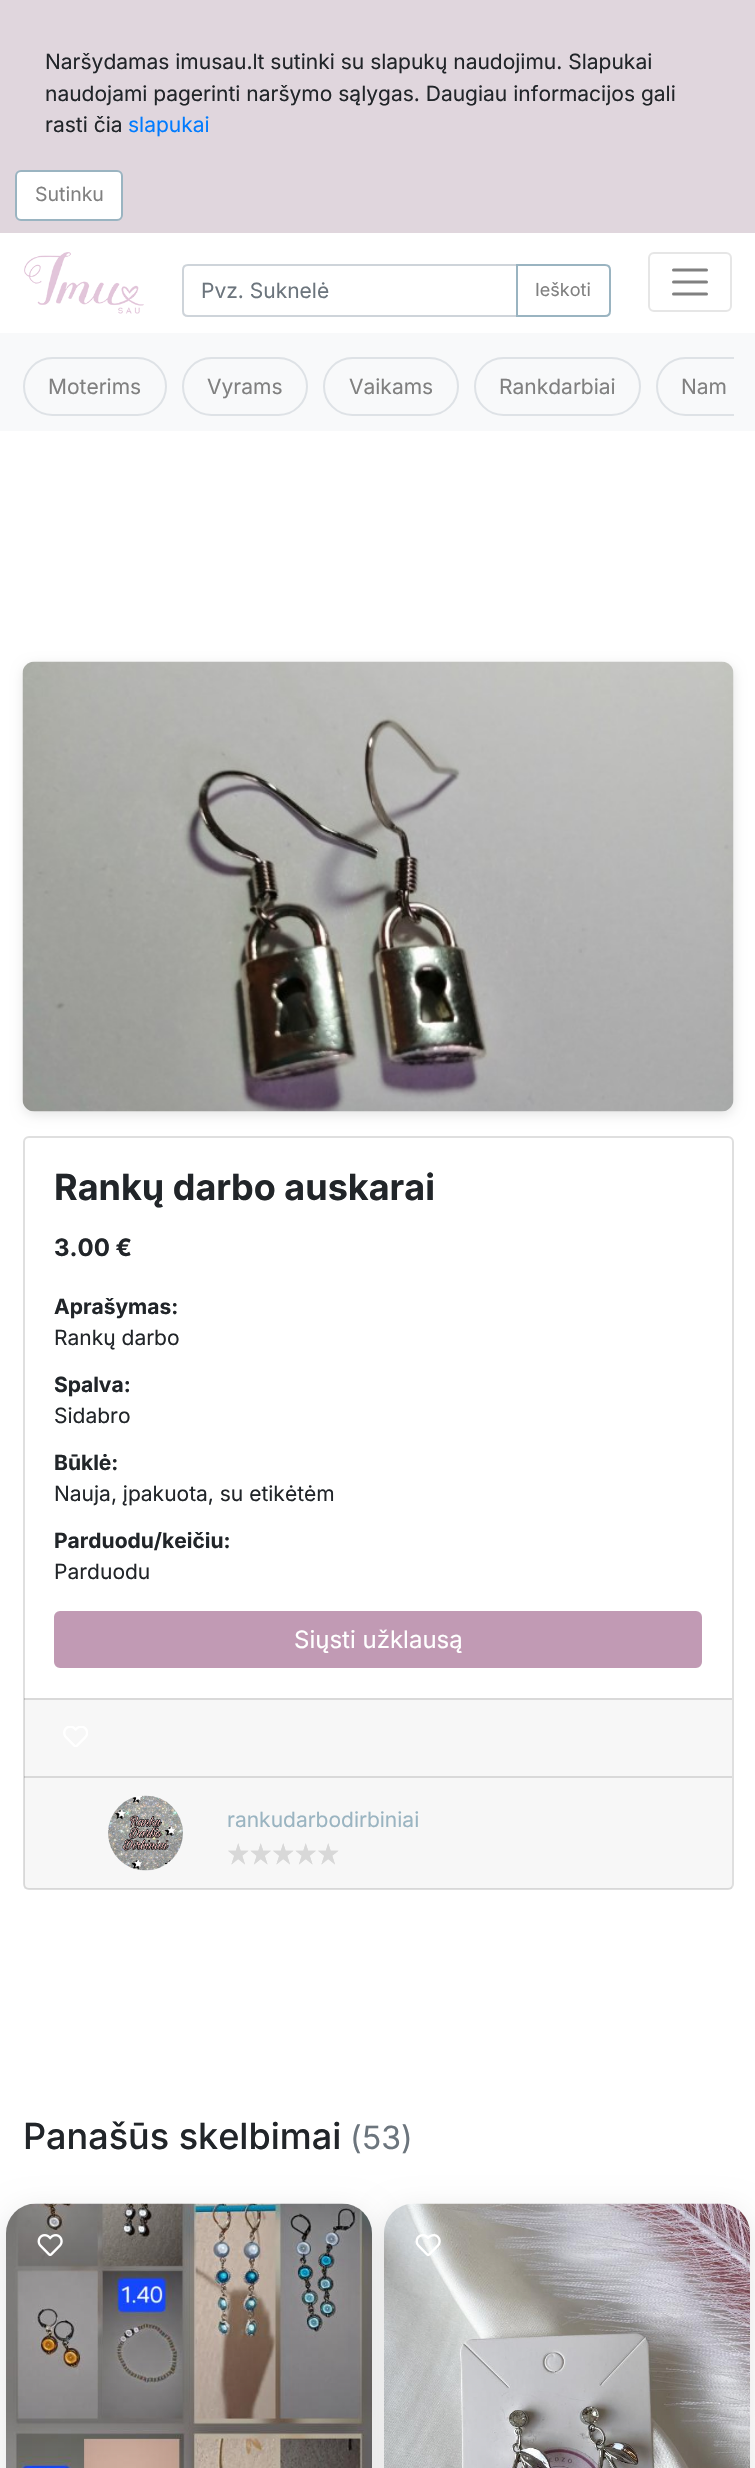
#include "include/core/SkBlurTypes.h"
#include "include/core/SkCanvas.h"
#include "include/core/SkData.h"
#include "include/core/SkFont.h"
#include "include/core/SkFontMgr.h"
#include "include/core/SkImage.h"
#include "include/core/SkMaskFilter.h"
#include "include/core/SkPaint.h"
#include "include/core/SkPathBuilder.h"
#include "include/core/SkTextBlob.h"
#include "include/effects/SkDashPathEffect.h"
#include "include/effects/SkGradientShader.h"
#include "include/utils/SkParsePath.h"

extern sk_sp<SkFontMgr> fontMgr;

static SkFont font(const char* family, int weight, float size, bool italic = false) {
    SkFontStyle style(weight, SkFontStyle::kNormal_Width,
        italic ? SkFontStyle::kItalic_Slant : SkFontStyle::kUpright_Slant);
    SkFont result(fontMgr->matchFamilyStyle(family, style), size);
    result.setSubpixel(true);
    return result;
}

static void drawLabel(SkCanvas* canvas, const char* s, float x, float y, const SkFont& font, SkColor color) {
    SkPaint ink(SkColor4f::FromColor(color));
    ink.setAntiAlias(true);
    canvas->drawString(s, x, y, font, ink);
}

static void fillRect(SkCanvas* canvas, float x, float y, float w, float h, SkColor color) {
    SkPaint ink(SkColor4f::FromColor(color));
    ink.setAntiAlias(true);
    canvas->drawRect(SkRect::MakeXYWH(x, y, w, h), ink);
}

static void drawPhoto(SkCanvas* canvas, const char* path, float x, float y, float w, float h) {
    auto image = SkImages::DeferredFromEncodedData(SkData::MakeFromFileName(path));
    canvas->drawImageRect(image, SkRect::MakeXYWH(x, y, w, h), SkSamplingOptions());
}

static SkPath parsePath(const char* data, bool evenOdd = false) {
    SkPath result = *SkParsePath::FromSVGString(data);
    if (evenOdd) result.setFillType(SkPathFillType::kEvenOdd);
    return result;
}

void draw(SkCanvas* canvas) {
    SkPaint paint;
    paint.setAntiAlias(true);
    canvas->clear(0xFFFFFFFF);
    fillRect(canvas, 0, 0, 755, 233, 0xFFE0D6DD);
    SkFont font1 = font("Inter", 400, 21);
    drawLabel(canvas, "Naršydamas imusau.lt sutinki su slapukų naudojimu. Slapukai", 45, 69, font1, 0xFF212529);
    drawLabel(canvas, "naudojami pagerinti naršymo sąlygas. Daugiau informacijos gali", 45, 101, font1, 0xFF212529);
    drawLabel(canvas, "rasti čia", 45, 132, font1, 0xFF212529);
    drawLabel(canvas, "slapukai", 128, 132, font1, 0xFF007BFF);
    paint.setColor(0xFFFFFFFF);
    canvas->drawRoundRect(SkRect::MakeXYWH(16, 171, 106, 49), 5, 5, paint);
    paint.setStroke(true);
    paint.setStrokeWidth(2);
    paint.setColor(0xFF9AB4C1);
    canvas->drawRoundRect(SkRect::MakeXYWH(16, 171, 106, 49), 5, 5, paint);
    SkFont font2 = font("Inter", 400, 19.5f);
    drawLabel(canvas, "Sutinku", 35, 201, font2, 0xFF808080);
    drawPhoto(canvas, "assets/img1.png", 24, 252, 120, 62);
    paint.setColor(0xFFCED4DA);
    canvas->drawPath(parsePath("M188 265H517V316H188C185 316 183 314 183 311V270C183 267 185 265 188 265Z"), paint);
    drawLabel(canvas, "Pvz. Suknelė", 201, 298, font1, 0xFF6C757D);
    paint.setStroke(false);
    paint.setColor(0xFFFFFFFF);
    canvas->drawPath(parsePath("M517 265H605C608 265 610 267 610 270V311C610 314 608 316 605 316H517Z"), paint);
    paint.setStroke(true);
    paint.setColor(0xFF9AB4C1);
    canvas->drawPath(parsePath("M517 265H605C608 265 610 267 610 270V311C610 314 608 316 605 316H517Z"), paint);
    SkFont font3 = font("Inter", 400, 18);
    drawLabel(canvas, "Ieškoti", 535, 296, font3, 0xFF808080);
    paint.setColor(0xFFE6E6E6);
    canvas->drawRoundRect(SkRect::MakeXYWH(649, 253, 82, 58), 5, 5, paint);
    paint.setStrokeWidth(3);
    paint.setStrokeCap(SkPaint::kRound_Cap);
    paint.setColor(0xFF808080);
    canvas->drawPath(parsePath("M673.5 270H706.5M673.5 282H706.5M673.5 294H706.5"), paint);
    fillRect(canvas, 0, 333, 755, 98, 0xFFF8F9FA);
    paint.setStrokeWidth(2);
    paint.setStrokeCap(SkPaint::kButt_Cap);
    paint.setColor(0xFFDEE2E6);
    canvas->drawRoundRect(SkRect::MakeXYWH(24, 358, 142, 57), 28.5f, 28.5f, paint);
    drawLabel(canvas, "Moterims", 48, 394, font1, 0xFF808080);
    canvas->drawRoundRect(SkRect::MakeXYWH(183, 358, 124, 57), 28.5f, 28.5f, paint);
    drawLabel(canvas, "Vyrams", 207, 394, font1, 0xFF808080);
    canvas->drawRoundRect(SkRect::MakeXYWH(324, 358, 134, 57), 28.5f, 28.5f, paint);
    drawLabel(canvas, "Vaikams", 349, 394, font1, 0xFF808080);
    canvas->drawRoundRect(SkRect::MakeXYWH(475, 358, 165, 57), 28.5f, 28.5f, paint);
    drawLabel(canvas, "Rankdarbiai", 499, 394, font1, 0xFF808080);
    canvas->save();
    canvas->clipRect(SkRect::MakeXYWH(23, 357, 711, 74));
    canvas->drawRoundRect(SkRect::MakeXYWH(657, 358, 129, 57), 28.5f, 28.5f, paint);
    canvas->restore();
    drawLabel(canvas, "Nam", 681, 394, font1, 0xFF808080);
    paint.setStroke(false);
    paint.setColor(0x1A000000);
    paint.setMaskFilter(SkMaskFilter::MakeBlur(kNormal_SkBlurStyle, 6));
    canvas->drawRoundRect(SkRect::MakeXYWH(23, 665, 711, 450), 12, 12, paint);
    paint.setMaskFilter(nullptr);
    drawPhoto(canvas, "assets/img2.png", 22, 661, 712, 451);
    paint.setStroke(true);
    paint.setColor(0xFFDFDFDF);
    canvas->drawRoundRect(SkRect::MakeXYWH(24, 1137, 709, 752), 5, 5, paint);
    SkFont font4 = font("Inter", 700, 36);
    drawLabel(canvas, "Rankų darbo auskarai", 54, 1200, font4, 0xFF212529);
    SkFont font5 = font("Inter", 700, 24);
    drawLabel(canvas, "3.00 €", 54, 1256, font5, 0xFF212529);
    SkFont font6 = font("Inter", 700, 21);
    drawLabel(canvas, "Aprašymas:", 54, 1314, font6, 0xFF212529);
    drawLabel(canvas, "Rankų darbo", 54, 1345, font1, 0xFF212529);
    drawLabel(canvas, "Spalva:", 54, 1392, font6, 0xFF212529);
    drawLabel(canvas, "Sidabro", 54, 1423, font1, 0xFF212529);
    drawLabel(canvas, "Būklė:", 54, 1470, font6, 0xFF212529);
    drawLabel(canvas, "Nauja, įpakuota, su etikėtėm", 54, 1501, font1, 0xFF212529);
    drawLabel(canvas, "Parduodu/keičiu:", 54, 1548, font6, 0xFF212529);
    drawLabel(canvas, "Parduodu", 54, 1579, font1, 0xFF212529);
    paint.setStroke(false);
    paint.setColor(0xFFC19AB4);
    canvas->drawRoundRect(SkRect::MakeXYWH(55, 1612, 646, 55), 5, 5, paint);
    paint.setStroke(true);
    canvas->drawRoundRect(SkRect::MakeXYWH(55, 1612, 646, 55), 5, 5, paint);
    SkFont font7 = font("Inter", 400, 24);
    drawLabel(canvas, "Siųsti užklausą", 294, 1648, font7, 0xFFFFFFFF);
    fillRect(canvas, 24, 1698, 708, 78, 0x08000000);
    fillRect(canvas, 24, 1698, 708, 2, 0x1F000000);
    drawPhoto(canvas, "assets/img3.png", 63, 1726, 25, 21);
    fillRect(canvas, 24, 1776, 708, 113, 0x08000000);
    fillRect(canvas, 24, 1776, 708, 2, 0x1F000000);
    drawPhoto(canvas, "assets/img4.png", 108, 1795, 75, 76);
    drawLabel(canvas, "rankudarbodirbiniai", 227, 1827, font1, 0xFF9AB4C1);
    drawPhoto(canvas, "assets/img5.png", 228, 1843, 21, 22);
    drawPhoto(canvas, "assets/img6.png", 250, 1843, 21, 22);
    drawPhoto(canvas, "assets/img7.png", 273, 1843, 21, 22);
    drawPhoto(canvas, "assets/img8.png", 295, 1843, 21, 22);
    drawPhoto(canvas, "assets/img5.png", 318, 1843, 21, 22);
    SkFont font8 = font("Inter", 500, 36);
    drawLabel(canvas, "Panašūs skelbimai", 23, 2149, font8, 0xFF212529);
    SkFont font9 = font("Inter", 400, 32);
    drawLabel(canvas, "(53)", 350, 2149, font9, 0xFF6C757D);
    paint.setStroke(false);
    paint.setColor(0x1A000000);
    paint.setMaskFilter(SkMaskFilter::MakeBlur(kNormal_SkBlurStyle, 15));
    canvas->drawRoundRect(SkRect::MakeXYWH(6, 2211, 366, 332), 30, 30, paint);
    paint.setMaskFilter(nullptr);
    drawPhoto(canvas, "assets/img9.png", 6, 2203, 366, 265);
    drawPhoto(canvas, "assets/img10.png", 37, 2234, 26, 22);
    paint.setMaskFilter(SkMaskFilter::MakeBlur(kNormal_SkBlurStyle, 15));
    canvas->drawRoundRect(SkRect::MakeXYWH(384, 2211, 366, 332), 30, 30, paint);
    paint.setMaskFilter(nullptr);
    drawPhoto(canvas, "assets/img11.png", 384, 2203, 366, 265);
    drawPhoto(canvas, "assets/img12.png", 415, 2234, 26, 22);
}
